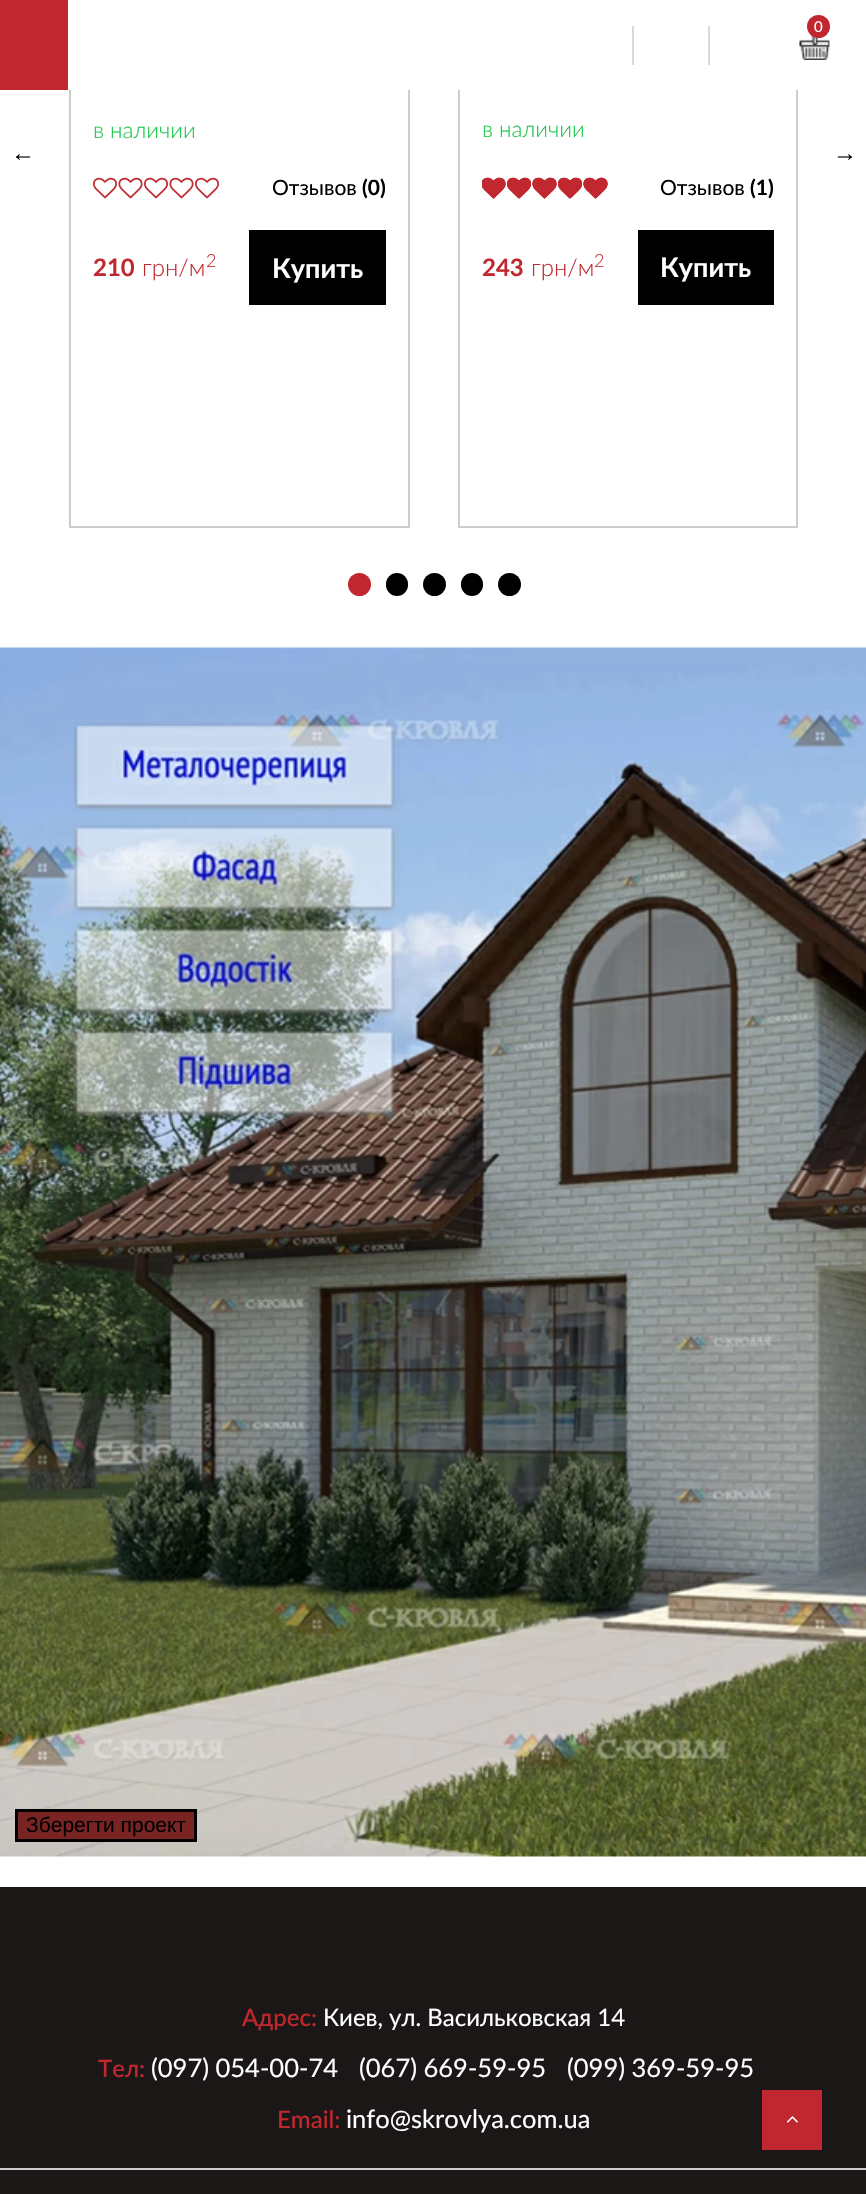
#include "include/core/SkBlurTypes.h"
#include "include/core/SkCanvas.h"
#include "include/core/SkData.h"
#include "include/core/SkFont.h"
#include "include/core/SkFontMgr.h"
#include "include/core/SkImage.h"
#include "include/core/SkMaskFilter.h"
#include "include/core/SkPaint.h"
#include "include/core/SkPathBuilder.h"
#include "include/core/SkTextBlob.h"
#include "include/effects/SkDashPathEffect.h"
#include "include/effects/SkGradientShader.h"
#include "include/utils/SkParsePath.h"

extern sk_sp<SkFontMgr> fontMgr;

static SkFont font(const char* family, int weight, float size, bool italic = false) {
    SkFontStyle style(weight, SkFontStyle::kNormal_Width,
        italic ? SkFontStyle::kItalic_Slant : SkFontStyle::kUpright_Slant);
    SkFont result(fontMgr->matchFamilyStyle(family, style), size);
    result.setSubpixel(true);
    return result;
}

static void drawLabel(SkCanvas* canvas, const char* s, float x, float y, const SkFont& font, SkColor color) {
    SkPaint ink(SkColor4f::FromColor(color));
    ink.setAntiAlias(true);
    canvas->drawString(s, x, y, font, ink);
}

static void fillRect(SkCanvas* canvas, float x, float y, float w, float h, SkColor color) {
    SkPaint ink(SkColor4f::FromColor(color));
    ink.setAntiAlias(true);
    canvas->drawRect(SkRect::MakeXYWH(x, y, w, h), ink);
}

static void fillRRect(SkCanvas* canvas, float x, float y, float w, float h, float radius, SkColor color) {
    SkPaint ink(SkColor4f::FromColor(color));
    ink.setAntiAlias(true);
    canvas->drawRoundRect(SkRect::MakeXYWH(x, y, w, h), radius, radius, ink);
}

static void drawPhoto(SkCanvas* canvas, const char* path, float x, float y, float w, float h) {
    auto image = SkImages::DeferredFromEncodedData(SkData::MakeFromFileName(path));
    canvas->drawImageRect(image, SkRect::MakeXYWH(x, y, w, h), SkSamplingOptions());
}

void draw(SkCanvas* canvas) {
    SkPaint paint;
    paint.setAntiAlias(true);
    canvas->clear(0xFFFFFFFF);
    paint.setStroke(true);
    paint.setStrokeWidth(2);
    paint.setColor(0xFFCCCCCC);
    canvas->drawRect(SkRect::MakeXYWH(70, -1, 339, 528), paint);
    canvas->drawRect(SkRect::MakeXYWH(459, -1, 338, 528), paint);
    fillRect(canvas, 69, 0, 729, 90, 0xFFFFFFFF);
    fillRect(canvas, 0, 0, 68, 90, 0xFFC0272E);
    fillRect(canvas, 708, 26, 2, 39, 0xFFD9D9D9);
    fillRect(canvas, 632, 26, 2, 39, 0xFFD9D9D9);
    drawPhoto(canvas, "assets/img1.png", 799, 35, 31, 25);
    paint.setStroke(false);
    paint.setColor(0xFFC1272F);
    canvas->drawCircle(818.5f, 26.5f, 11.5f, paint);
    SkFont font1 = font("Lato", 400, 15);
    drawLabel(canvas, "0", 814, 32, font1, 0xFFFFFFFF);
    SkFont font2 = font("Liberation Sans", 700, 24);
    drawLabel(canvas, "←", 11, 161, font2, 0xFF000000);
    SkFont font3 = font("Lato", 300, 22.5f);
    drawLabel(canvas, "в наличии", 93, 138, font3, 0xFF1BC74B);
    drawPhoto(canvas, "assets/img2.png", 93, 177, 126, 22);
    SkFont font4 = font("Lato", 400, 21);
    drawLabel(canvas, "Отзывов", 272, 195, font4, 0xFF000000);
    SkFont font5 = font("Lato", 700, 21);
    drawLabel(canvas, "(0)", 362, 195, font5, 0xFF000000);
    SkFont font6 = font("Lato", 700, 24);
    drawLabel(canvas, "210", 93, 276, font6, 0xFFC0272E);
    SkFont font7 = font("Lato", 300, 24);
    drawLabel(canvas, "грн/м", 142, 276, font7, 0xFFC0272E);
    SkFont font8 = font("Lato", 300, 18);
    drawLabel(canvas, "2", 206, 267, font8, 0xFFC0272E);
    fillRect(canvas, 249, 230, 137, 75, 0xFF000000);
    SkFont font9 = font("Lato", 700, 27);
    drawLabel(canvas, "Купить", 272, 278, font9, 0xFFFFFFFF);
    drawLabel(canvas, "в наличии", 482, 137, font3, 0xFF1BC74B);
    drawPhoto(canvas, "assets/img3.png", 482, 177, 126, 22);
    drawPhoto(canvas, "assets/img4.png", 482, 177, 126, 22);
    drawPhoto(canvas, "assets/img5.png", 482, 177, 126, 22);
    drawLabel(canvas, "Отзывов", 660, 195, font4, 0xFF000000);
    drawLabel(canvas, "(1)", 750, 195, font5, 0xFF000000);
    drawLabel(canvas, "243", 482, 276, font6, 0xFFC0272E);
    drawLabel(canvas, "грн/м", 531, 276, font7, 0xFFC0272E);
    drawLabel(canvas, "2", 594, 267, font8, 0xFFC0272E);
    fillRect(canvas, 638, 230, 136, 75, 0xFF000000);
    drawLabel(canvas, "Купить", 660, 277, font9, 0xFFFFFFFF);
    drawLabel(canvas, "→", 833, 161, font2, 0xFF000000);
    paint.setColor(0xFFC0272E);
    canvas->drawCircle(359.5f, 584.5f, 11.5f, paint);
    fillRRect(canvas, 386, 573, 22, 23, 11, 0xFF000000);
    paint.setColor(0xFF000000);
    canvas->drawCircle(434.5f, 584.5f, 11.5f, paint);
    fillRRect(canvas, 461, 573, 22, 23, 11, 0xFF000000);
    canvas->drawCircle(509.5f, 584.5f, 11.5f, paint);
    drawPhoto(canvas, "assets/img6.png", 0, 647, 866, 1210);
    paint.setColor(0xFF792423);
    canvas->drawRect(SkRect::MakeXYWH(16.5f, 1810.5f, 179, 30), paint);
    paint.setStroke(true);
    paint.setStrokeWidth(3);
    paint.setColor(0xFF000000);
    canvas->drawRect(SkRect::MakeXYWH(16.5f, 1810.5f, 179, 30), paint);
    SkFont font10 = font("Liberation Sans", 400, 21);
    drawLabel(canvas, "Зберегти проект", 26, 1832, font10, 0xFF000000);
    fillRect(canvas, 0, 1887, 866, 307, 0xFF1B1717);
    SkFont font11 = font("Lato", 500, 24);
    drawLabel(canvas, "Адрес:", 242, 2026, font11, 0xFFC0272E);
    SkFont font12 = font("Lato", 400, 24);
    drawLabel(canvas, "Киев, ул. Васильковская 14", 323, 2026, font12, 0xFFFFFFFF);
    drawLabel(canvas, "Тел:", 98, 2077, font11, 0xFFC0272E);
    SkFont font13 = font("Lato", 400, 25.5f);
    drawLabel(canvas, "(097) 054-00-74", 151, 2077, font13, 0xFFFFFFFF);
    drawLabel(canvas, "(067) 669-59-95", 359, 2077, font13, 0xFFFFFFFF);
    drawLabel(canvas, "(099) 369-59-95", 567, 2077, font13, 0xFFFFFFFF);
    drawLabel(canvas, "Email:", 277, 2128, font11, 0xFFC0272E);
    drawLabel(canvas, "info@skrovlya.com.ua", 346, 2128, font13, 0xFFFFFFFF);
    fillRect(canvas, 0, 2168, 866, 2, 0xFFCCCCCC);
    fillRect(canvas, 762, 2090, 60, 60, 0xFFC1272F);
    drawPhoto(canvas, "assets/img7.png", 786, 2116, 12, 7);
}
